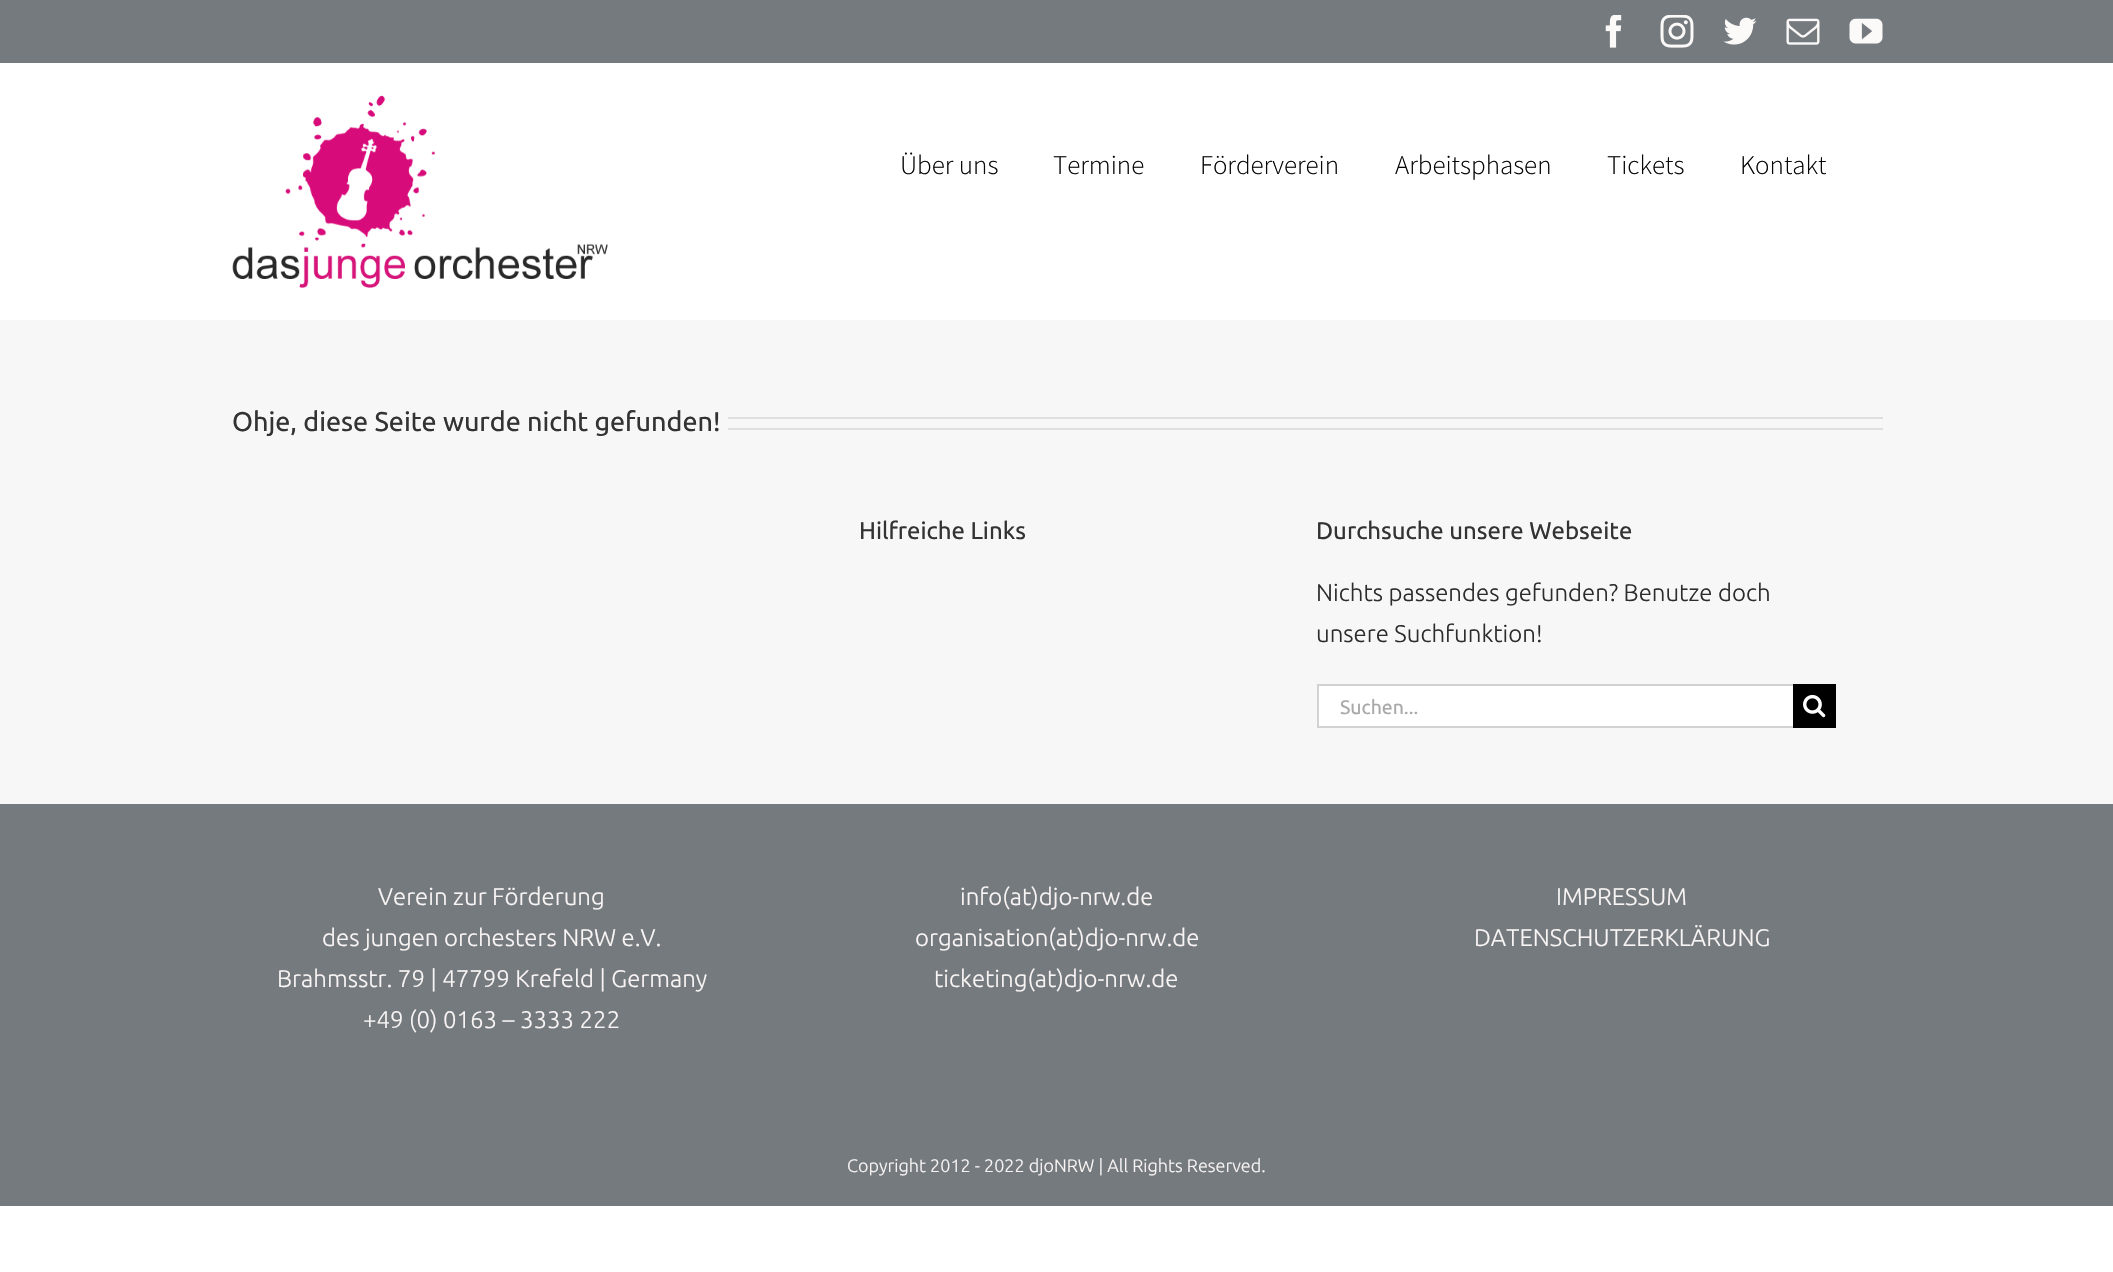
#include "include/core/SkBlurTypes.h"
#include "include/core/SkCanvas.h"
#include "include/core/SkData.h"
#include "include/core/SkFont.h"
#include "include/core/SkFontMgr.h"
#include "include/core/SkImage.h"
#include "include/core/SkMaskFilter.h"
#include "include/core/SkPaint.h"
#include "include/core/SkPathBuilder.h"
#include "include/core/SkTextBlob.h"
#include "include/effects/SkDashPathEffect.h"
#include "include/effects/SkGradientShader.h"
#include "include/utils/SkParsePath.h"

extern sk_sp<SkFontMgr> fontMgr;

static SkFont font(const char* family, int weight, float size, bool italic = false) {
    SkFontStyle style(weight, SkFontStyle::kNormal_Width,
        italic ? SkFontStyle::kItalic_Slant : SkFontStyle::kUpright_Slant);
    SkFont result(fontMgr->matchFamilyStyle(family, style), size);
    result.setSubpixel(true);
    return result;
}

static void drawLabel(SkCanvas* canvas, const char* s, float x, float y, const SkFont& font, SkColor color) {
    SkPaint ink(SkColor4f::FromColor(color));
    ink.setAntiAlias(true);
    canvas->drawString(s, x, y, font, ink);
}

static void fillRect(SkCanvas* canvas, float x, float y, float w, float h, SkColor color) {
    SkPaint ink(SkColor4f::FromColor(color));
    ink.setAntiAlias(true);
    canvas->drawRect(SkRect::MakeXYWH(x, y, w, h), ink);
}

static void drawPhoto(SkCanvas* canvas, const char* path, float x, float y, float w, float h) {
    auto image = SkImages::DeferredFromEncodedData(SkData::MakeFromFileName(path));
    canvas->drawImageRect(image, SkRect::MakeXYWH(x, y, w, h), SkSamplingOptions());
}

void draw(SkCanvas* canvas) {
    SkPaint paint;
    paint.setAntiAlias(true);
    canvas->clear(0xFFFFFFFF);
    fillRect(canvas, 0, 320, 2113, 484, 0xFFF7F7F7);
    fillRect(canvas, 0, 0, 2113, 63, 0xFF757A7F);
    drawPhoto(canvas, "assets/img1.png", 1605, 15, 17, 33);
    drawPhoto(canvas, "assets/img2.png", 1660, 15, 34, 33);
    drawPhoto(canvas, "assets/img3.png", 1723, 17, 34, 28);
    drawPhoto(canvas, "assets/img4.png", 1786, 18, 34, 27);
    drawPhoto(canvas, "assets/img5.png", 1849, 18, 34, 26);
    drawPhoto(canvas, "assets/img6.png", 232, 95, 376, 193);
    SkFont font1 = font("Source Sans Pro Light", 300, 27);
    drawLabel(canvas, "Über uns", 900, 174, font1, 0xFF070707);
    drawLabel(canvas, "Termine", 1053, 174, font1, 0xFF070707);
    drawLabel(canvas, "Förderverein", 1200, 174, font1, 0xFF070707);
    drawLabel(canvas, "Arbeitsphasen", 1395, 174, font1, 0xFF070707);
    drawLabel(canvas, "Tickets", 1607, 174, font1, 0xFF070707);
    drawLabel(canvas, "Kontakt", 1740, 174, font1, 0xFF070707);
    SkFont font2 = font("Ubuntu", 400, 27);
    drawLabel(canvas, "Ohje, diese Seite wurde nicht gefunden!", 232, 431, font2, 0xFF333333);
    fillRect(canvas, 728, 417, 1155, 2, 0xFFE0DEDE);
    fillRect(canvas, 728, 428, 1155, 2, 0xFFE0DEDE);
    SkFont font3 = font("Ubuntu", 400, 24);
    drawLabel(canvas, "Hilfreiche Links", 859, 539, font3, 0xFF333333);
    drawLabel(canvas, "Durchsuche unsere Webseite", 1316, 539, font3, 0xFF333333);
    SkFont font4 = font("Ubuntu", 300, 24);
    drawLabel(canvas, "Nichts passendes gefunden? Benutze doch", 1316, 601, font4, 0xFF2C2C2E);
    drawLabel(canvas, "unsere Suchfunktion!", 1316, 642, font4, 0xFF2C2C2E);
    fillRect(canvas, 1319, 686, 474, 40, 0xFFFFFFFF);
    fillRect(canvas, 1317, 684, 476, 2, 0xFFD2D2D2);
    fillRect(canvas, 1317, 726, 476, 2, 0xFFD2D2D2);
    fillRect(canvas, 1317, 684, 2, 44, 0xFFD2D2D2);
    SkFont font5 = font("Ubuntu", 400, 19.5f);
    drawLabel(canvas, "Suchen...", 1340, 714, font5, 0xFFAAA9A9);
    fillRect(canvas, 1793, 684, 43, 44, 0xFF000000);
    drawPhoto(canvas, "assets/img7.png", 1803, 694, 23, 24);
    fillRect(canvas, 0, 804, 2113, 402, 0xFF757A7F);
    drawLabel(canvas, "Verein zur Förderung", 378, 905, font4, 0xFFF9F5F4);
    drawLabel(canvas, "des jungen orchesters NRW e.V.", 322, 946, font4, 0xFFF9F5F4);
    drawLabel(canvas, "Brahmsstr. 79 | 47799 Krefeld | Germany", 277, 987, font4, 0xFFF9F5F4);
    drawLabel(canvas, "+49 (0) 0163 – 3333 222", 363, 1028, font4, 0xFFF9F5F4);
    drawLabel(canvas, "info(at)djo-nrw.de", 960, 905, font4, 0xFFF9F5F4);
    drawLabel(canvas, "organisation(at)djo-nrw.de", 915, 946, font4, 0xFFF9F5F4);
    drawLabel(canvas, "ticketing(at)djo-nrw.de", 934, 987, font4, 0xFFF9F5F4);
    drawLabel(canvas, "IMPRESSUM", 1556, 905, font4, 0xFFF9F5F4);
    drawLabel(canvas, "DATENSCHUTZERKLÄRUNG", 1474, 946, font4, 0xFFF9F5F4);
    SkFont font6 = font("Ubuntu", 300, 18);
    drawLabel(canvas, "Copyright 2012 - 2022 djoNRW | All Rights Reserved.", 847, 1172, font6, 0xFFF9F5F4);
}
